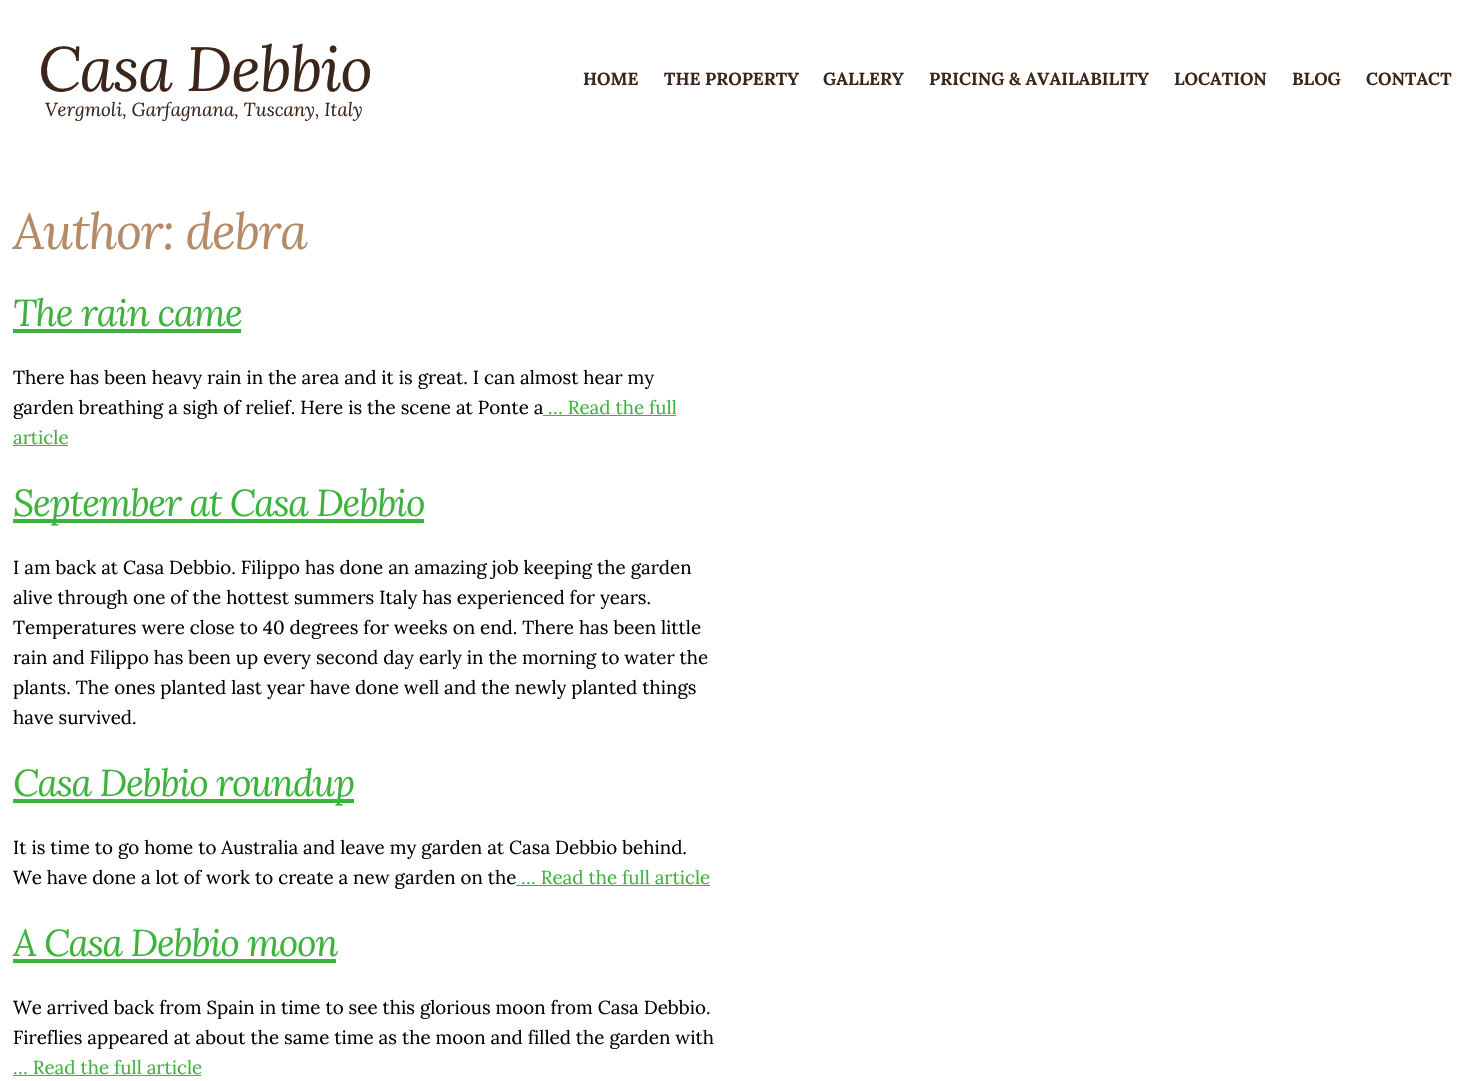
#include "include/core/SkBlurTypes.h"
#include "include/core/SkCanvas.h"
#include "include/core/SkData.h"
#include "include/core/SkFont.h"
#include "include/core/SkFontMgr.h"
#include "include/core/SkImage.h"
#include "include/core/SkMaskFilter.h"
#include "include/core/SkPaint.h"
#include "include/core/SkPathBuilder.h"
#include "include/core/SkTextBlob.h"
#include "include/effects/SkDashPathEffect.h"
#include "include/effects/SkGradientShader.h"
#include "include/utils/SkParsePath.h"

extern sk_sp<SkFontMgr> fontMgr;

static SkFont font(const char* family, int weight, float size, bool italic = false) {
    SkFontStyle style(weight, SkFontStyle::kNormal_Width,
        italic ? SkFontStyle::kItalic_Slant : SkFontStyle::kUpright_Slant);
    SkFont result(fontMgr->matchFamilyStyle(family, style), size);
    result.setSubpixel(true);
    return result;
}

static void drawLabel(SkCanvas* canvas, const char* s, float x, float y, const SkFont& font, SkColor color) {
    SkPaint ink(SkColor4f::FromColor(color));
    ink.setAntiAlias(true);
    canvas->drawString(s, x, y, font, ink);
}

static void drawTracked(SkCanvas* canvas, const char* s, float x, float y, const SkFont& font, const SkPaint& ink, float letter, float word) {
    std::vector<SkGlyphID> glyphs(font.countText(s, strlen(s), SkTextEncoding::kUTF8));
    std::vector<float> xs(glyphs.size());
    font.textToGlyphs(s, strlen(s), SkTextEncoding::kUTF8, glyphs);
    font.getXPos(glyphs, xs, x);
    float extra = 0;
    for (size_t i = 0; i < glyphs.size(); i++) {
        xs[i] += extra;
        extra += letter + word * (glyphs[i] == font.unicharToGlyph(' '));
    }
    canvas->drawTextBlob(SkTextBlob::MakeFromPosHGlyphs(glyphs, xs, y, font), 0, 0, ink);
}

static void fillRect(SkCanvas* canvas, float x, float y, float w, float h, SkColor color) {
    SkPaint ink(SkColor4f::FromColor(color));
    ink.setAntiAlias(true);
    canvas->drawRect(SkRect::MakeXYWH(x, y, w, h), ink);
}

void draw(SkCanvas* canvas) {
    SkPaint paint;
    paint.setAntiAlias(true);
    canvas->clear(0xFFFFFFFF);
    SkFont font1 = font("Lora", 400, 62.5f, true);
    paint.setColor(0xFF3C261A);
    drawTracked(canvas, "Casa Debbio", 38, 91, font1, paint, -1.25f, 0);
    SkFont font2 = font("Lora", 400, 18.75f, true);
    drawLabel(canvas, "Vergmoli, Garfagnana, Tuscany, Italy", 45, 116, font2, 0xFF3C261A);
    SkFont font3 = font("Lora", 700, 17.5f);
    drawLabel(canvas, "HOME", 583, 85, font3, 0xFF3C261A);
    drawLabel(canvas, "THE PROPERTY", 664, 85, font3, 0xFF3C261A);
    drawLabel(canvas, "GALLERY", 823, 85, font3, 0xFF3C261A);
    drawLabel(canvas, "PRICING & AVAILABILITY", 929, 85, font3, 0xFF3C261A);
    drawLabel(canvas, "LOCATION", 1174, 85, font3, 0xFF3C261A);
    drawLabel(canvas, "BLOG", 1292, 85, font3, 0xFF3C261A);
    drawLabel(canvas, "CONTACT", 1366, 85, font3, 0xFF3C261A);
    SkFont font4 = font("Lora", 400, 50, true);
    paint.setColor(0xFFB48A67);
    drawTracked(canvas, "Author: debra", 13, 249, font4, paint, -1.25f, 0);
    SkFont font5 = font("Lora", 400, 37.5f, true);
    paint.setColor(0xFF3DB23D);
    drawTracked(canvas, "The rain came", 13, 326, font5, paint, -1.25f, 0);
    fillRect(canvas, 13, 329, 228, 4, 0xFF3DB23D);
    SkFont font6 = font("Lora", 400, 18.75f);
    drawLabel(canvas, "There has been heavy rain in the area and it is great. I can almost hear my", 13, 384, font6, 0xFF000000);
    drawLabel(canvas, "garden breathing a sigh of relief. Here is the scene at Ponte a", 13, 414, font6, 0xFF000000);
    drawLabel(canvas, "… Read the full", 548, 414, font6, 0xFF3DB23D);
    fillRect(canvas, 543, 415, 133, 1, 0xFF3DB23D);
    drawLabel(canvas, "article", 13, 444, font6, 0xFF3DB23D);
    fillRect(canvas, 13, 445, 55, 1, 0xFF3DB23D);
    fillRect(canvas, 13, 519, 411, 4, 0xFF3DB23D);
    drawTracked(canvas, "September at Casa Debbio", 13, 516, font5, paint, -1.25f, 0);
    drawLabel(canvas, "I am back at Casa Debbio. Filippo has done an amazing job keeping the garden", 13, 574, font6, 0xFF000000);
    drawLabel(canvas, "alive through one of the hottest summers Italy has experienced for years.", 13, 604, font6, 0xFF000000);
    drawLabel(canvas, "Temperatures were close to 40 degrees for weeks on end. There has been little", 13, 634, font6, 0xFF000000);
    drawLabel(canvas, "rain and Filippo has been up every second day early in the morning to water the", 13, 664, font6, 0xFF000000);
    drawLabel(canvas, "plants. The ones planted last year have done well and the newly planted things", 13, 694, font6, 0xFF000000);
    drawLabel(canvas, "have survived.", 13, 724, font6, 0xFF000000);
    fillRect(canvas, 13, 799, 341, 4, 0xFF3DB23D);
    drawTracked(canvas, "Casa Debbio roundup", 13, 796, font5, paint, -1.25f, 0);
    drawLabel(canvas, "It is time to go home to Australia and leave my garden at Casa Debbio behind.", 13, 854, font6, 0xFF000000);
    drawLabel(canvas, "We have done a lot of work to create a new garden on the", 13, 884, font6, 0xFF000000);
    drawLabel(canvas, "… Read the full article", 521, 884, font6, 0xFF3DB23D);
    fillRect(canvas, 516, 885, 194, 1, 0xFF3DB23D);
    drawTracked(canvas, "A Casa Debbio moon", 13, 956, font5, paint, -1.25f, 0);
    fillRect(canvas, 13, 959, 323, 4, 0xFF3DB23D);
    drawLabel(canvas, "We arrived back from Spain in time to see this glorious moon from Casa Debbio.", 13, 1014, font6, 0xFF000000);
    drawLabel(canvas, "Fireflies appeared at about the same time as the moon and filled the garden with", 13, 1044, font6, 0xFF000000);
    drawLabel(canvas, "… Read the full article", 13, 1074, font6, 0xFF3DB23D);
    fillRect(canvas, 13, 1075, 188, 1, 0xFF3DB23D);
}
